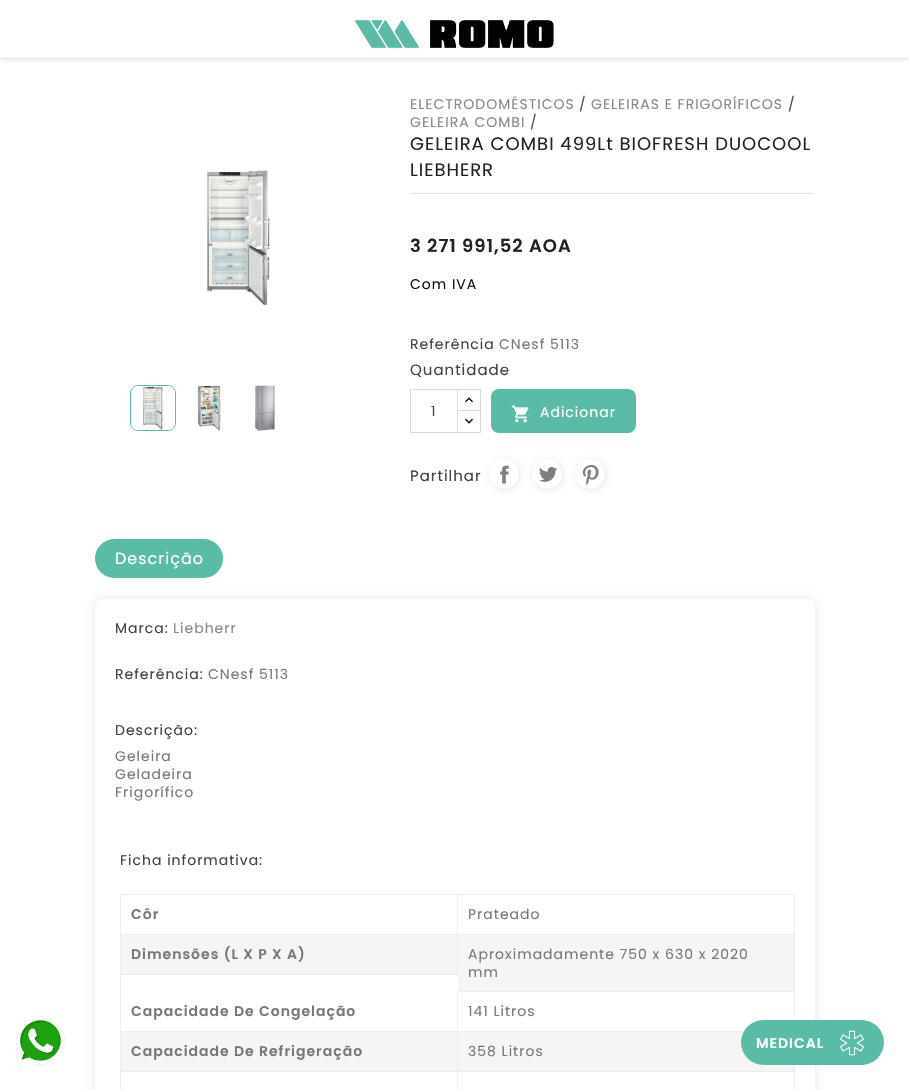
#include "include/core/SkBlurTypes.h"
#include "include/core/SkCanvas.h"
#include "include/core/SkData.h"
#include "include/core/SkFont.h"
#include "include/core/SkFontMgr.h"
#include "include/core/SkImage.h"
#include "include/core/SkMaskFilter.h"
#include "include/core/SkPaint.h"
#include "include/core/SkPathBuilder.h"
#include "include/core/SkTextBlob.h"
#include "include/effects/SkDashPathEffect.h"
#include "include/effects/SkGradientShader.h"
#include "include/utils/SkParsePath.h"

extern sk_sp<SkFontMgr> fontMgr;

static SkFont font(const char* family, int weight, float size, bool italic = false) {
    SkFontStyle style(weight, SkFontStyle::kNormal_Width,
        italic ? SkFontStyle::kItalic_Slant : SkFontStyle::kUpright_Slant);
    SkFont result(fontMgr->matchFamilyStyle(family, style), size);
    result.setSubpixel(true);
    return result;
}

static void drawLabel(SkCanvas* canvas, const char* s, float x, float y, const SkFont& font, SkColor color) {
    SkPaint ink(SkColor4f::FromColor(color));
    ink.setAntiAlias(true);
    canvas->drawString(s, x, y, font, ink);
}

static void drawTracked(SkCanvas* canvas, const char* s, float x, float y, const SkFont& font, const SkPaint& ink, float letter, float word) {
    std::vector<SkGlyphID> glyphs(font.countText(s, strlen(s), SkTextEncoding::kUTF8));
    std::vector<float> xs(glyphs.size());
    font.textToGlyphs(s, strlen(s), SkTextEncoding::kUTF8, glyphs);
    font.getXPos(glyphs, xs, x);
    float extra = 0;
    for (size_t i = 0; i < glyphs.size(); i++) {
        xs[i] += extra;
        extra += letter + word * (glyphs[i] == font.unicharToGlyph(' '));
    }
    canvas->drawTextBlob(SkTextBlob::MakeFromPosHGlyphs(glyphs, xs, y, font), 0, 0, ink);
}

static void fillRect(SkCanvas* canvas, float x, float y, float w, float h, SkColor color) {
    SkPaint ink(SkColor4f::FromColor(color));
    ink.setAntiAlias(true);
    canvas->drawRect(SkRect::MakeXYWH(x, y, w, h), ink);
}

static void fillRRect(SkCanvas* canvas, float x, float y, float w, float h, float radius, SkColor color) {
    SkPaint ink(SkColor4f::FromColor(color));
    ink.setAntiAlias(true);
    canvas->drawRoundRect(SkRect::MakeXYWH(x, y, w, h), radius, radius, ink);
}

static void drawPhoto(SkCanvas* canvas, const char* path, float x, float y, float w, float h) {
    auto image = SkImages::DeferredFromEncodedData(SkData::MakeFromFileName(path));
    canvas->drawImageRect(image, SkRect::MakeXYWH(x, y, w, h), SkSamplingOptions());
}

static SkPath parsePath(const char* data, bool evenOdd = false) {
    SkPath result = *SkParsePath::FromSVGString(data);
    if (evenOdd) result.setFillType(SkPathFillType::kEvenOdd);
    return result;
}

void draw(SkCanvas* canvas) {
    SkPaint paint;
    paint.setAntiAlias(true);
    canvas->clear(0xFFFFFFFF);
    canvas->save();
    canvas->clipRect(SkRect::MakeXYWH(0, 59, 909, 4));
    paint.setColor(0x1A000000);
    paint.setMaskFilter(SkMaskFilter::MakeBlur(kNormal_SkBlurStyle, 5));
    canvas->drawRect(SkRect::MakeXYWH(0, 0, 909, 59), paint);
    paint.setMaskFilter(nullptr);
    canvas->restore();
    drawPhoto(canvas, "assets/img1.png", 355, 20, 199, 28);
    fillRect(canvas, 0, 58, 909, 1, 0xFFE5E5E5);
    drawPhoto(canvas, "assets/img2.png", 206, 170, 65, 136);
    paint.setStroke(true);
    paint.setStrokeWidth(1);
    paint.setColor(0xFF5ABBA6);
    canvas->drawRoundRect(SkRect::MakeXYWH(130.5f, 385.5f, 45, 45), 7.5f, 7.5f, paint);
    drawPhoto(canvas, "assets/img3.png", 131, 386, 44, 44);
    drawPhoto(canvas, "assets/img4.png", 197, 385, 24, 46);
    drawPhoto(canvas, "assets/img5.png", 255, 385, 20, 46);
    SkFont font1 = font("Poppins", 400, 14);
    paint.setStroke(false);
    paint.setColor(0xFF888888);
    drawTracked(canvas, "ELECTRODOMÉSTICOS", 410, 109, font1, paint, 1, 0);
    paint.setColor(0xFF505050);
    drawTracked(canvas, "/", 579, 109, font1, paint, 1, 0);
    paint.setColor(0xFF888888);
    drawTracked(canvas, "GELEIRAS E FRIGORÍFICOS", 591, 109, font1, paint, 1, 0);
    paint.setColor(0xFF505050);
    drawTracked(canvas, "/", 788, 109, font1, paint, 1, 0);
    paint.setColor(0xFF888888);
    drawTracked(canvas, "GELEIRA COMBI", 410, 127, font1, paint, 1, 0);
    paint.setColor(0xFF505050);
    drawTracked(canvas, "/", 530, 127, font1, paint, 1, 0);
    fillRect(canvas, 410, 193, 404, 1, 0xFFE5E5E5);
    SkFont font2 = font("Poppins", 400, 18);
    paint.setColor(0xFF222222);
    drawTracked(canvas, "GELEIRA COMBI 499Lt BIOFRESH DUOCOOL", 410, 150, font2, paint, 1, 0);
    drawTracked(canvas, "LIEBHERR", 410, 176, font2, paint, 1, 0);
    SkFont font3 = font("Poppins", 600, 18);
    drawTracked(canvas, "3 271 991,52 AOA", 410, 252, font3, paint, 1, 0);
    paint.setColor(0xFF111111);
    drawTracked(canvas, "Com IVA", 410, 289, font1, paint, 1, 0);
    paint.setColor(0xFF414141);
    drawTracked(canvas, "Referência", 410, 349, font1, paint, 1, 0);
    paint.setColor(0xFF777777);
    drawTracked(canvas, "CNesf 5113", 499, 349, font1, paint, 1, 0);
    SkFont font4 = font("Poppins", 400, 15);
    paint.setColor(0xFF414141);
    drawTracked(canvas, "Quantidade", 410, 375, font4, paint, 1, 0);
    paint.setStroke(true);
    paint.setColor(0xFFD9D9D9);
    canvas->drawRect(SkRect::MakeXYWH(457.5f, 389.5f, 23, 22), paint);
    fillRect(canvas, 458, 411, 22, 1, 0xFFFFFFFF);
    canvas->drawRect(SkRect::MakeXYWH(457.5f, 410.5f, 23, 22), paint);
    canvas->drawRect(SkRect::MakeXYWH(410.5f, 389.5f, 47, 43), paint);
    drawLabel(canvas, "1", 431, 416, font1, 0xFF414141);
    drawPhoto(canvas, "assets/img6.png", 465, 397, 8, 6);
    drawPhoto(canvas, "assets/img7.png", 465, 418, 8, 6);
    fillRRect(canvas, 491, 389, 145, 44, 8, 0xFF5ABBA6);
    drawPhoto(canvas, "assets/img8.png", 511, 405, 18, 18);
    paint.setStroke(false);
    paint.setColor(0xFFFFFFFF);
    drawTracked(canvas, "Adicionar", 540, 417, font1, paint, 1, 0);
    paint.setColor(0xFF414141);
    drawTracked(canvas, "Partilhar", 410, 481, font4, paint, 1, 0);
    canvas->save();
    canvas->clipPath(parsePath("M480 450H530V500H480ZM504 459C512.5 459 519 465.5 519 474C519 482.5 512.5 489 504 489C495.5 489 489 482.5 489 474C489 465.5 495.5 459 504 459Z", true), true);
    paint.setColor(0x1A000000);
    paint.setMaskFilter(SkMaskFilter::MakeBlur(kNormal_SkBlurStyle, 3));
    canvas->drawRoundRect(SkRect::MakeXYWH(490, 460, 30, 30), 15, 15, paint);
    paint.setMaskFilter(nullptr);
    canvas->restore();
    drawPhoto(canvas, "assets/img9.png", 500, 465, 9, 19);
    paint.setMaskFilter(SkMaskFilter::MakeBlur(kNormal_SkBlurStyle, 3));
    canvas->drawRoundRect(SkRect::MakeXYWH(533, 460, 30, 30), 15, 15, paint);
    paint.setMaskFilter(nullptr);
    paint.setColor(0xFFFFFFFF);
    canvas->drawCircle(547, 474, 15, paint);
    drawPhoto(canvas, "assets/img10.png", 539, 467, 18, 15);
    paint.setColor(0x1A000000);
    paint.setMaskFilter(SkMaskFilter::MakeBlur(kNormal_SkBlurStyle, 3));
    canvas->drawRoundRect(SkRect::MakeXYWH(576, 460, 30, 30), 15, 15, paint);
    paint.setMaskFilter(nullptr);
    paint.setColor(0xFFFFFFFF);
    canvas->drawCircle(590, 474, 15, paint);
    drawPhoto(canvas, "assets/img11.png", 582, 465, 17, 20);
    fillRRect(canvas, 95, 539, 128, 39, 19.5f, 0xFF5ABBA6);
    SkFont font5 = font("Poppins", 400, 16);
    drawTracked(canvas, "Descrição", 115, 564, font5, paint, 1, 0);
    canvas->save();
    canvas->clipPath(parsePath("M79 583H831V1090H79ZM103 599H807C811.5 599 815 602.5 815 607V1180C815 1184.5 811.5 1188 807 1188H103C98.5 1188 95 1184.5 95 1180V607C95 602.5 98.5 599 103 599Z", true), true);
    paint.setColor(0x1A000000);
    paint.setMaskFilter(SkMaskFilter::MakeBlur(kNormal_SkBlurStyle, 5));
    canvas->drawRoundRect(SkRect::MakeXYWH(95, 599, 720, 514), 8, 8, paint);
    paint.setMaskFilter(nullptr);
    canvas->restore();
    paint.setColor(0xFF414141);
    drawTracked(canvas, "Marca:", 115, 633, font1, paint, 1, 0);
    paint.setColor(0xFF888888);
    drawTracked(canvas, "Liebherr", 173, 633, font1, paint, 1, 0);
    paint.setColor(0xFF414141);
    drawTracked(canvas, "Referência:", 115, 679, font1, paint, 1, 0);
    paint.setColor(0xFF777777);
    drawTracked(canvas, "CNesf 5113", 208, 679, font1, paint, 1, 0);
    paint.setColor(0xFF414141);
    drawTracked(canvas, "Descrição:", 115, 735, font1, paint, 1, 0);
    paint.setColor(0xFF777777);
    drawTracked(canvas, "Geleira", 115, 761, font1, paint, 1, 0);
    drawTracked(canvas, "Geladeira", 115, 779, font1, paint, 1, 0);
    drawTracked(canvas, "Frigorífico", 115, 797, font1, paint, 1, 0);
    paint.setColor(0xFF414141);
    drawTracked(canvas, "Ficha informativa:", 120, 865, font1, paint, 1, 0);
    paint.setColor(0xFFEEEEEE);
    canvas->drawPath(parsePath("M120 894H795V895H121Z"), paint);
    paint.setColor(0xA3E5E5E5);
    canvas->drawPath(parsePath("M120 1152V894L121 895V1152Z"), paint);
    paint.setColor(0xFFEEEEEE);
    canvas->drawPath(parsePath("M458 895V935L457 934V895Z"), paint);
    paint.setColor(0xA3E5E5E5);
    canvas->drawPath(parsePath("M458 935H121V934H457Z"), paint);
    SkFont font6 = font("Poppins", 600, 14);
    paint.setColor(0xFF777777);
    drawTracked(canvas, "Côr", 131, 919, font6, paint, 1, 0);
    paint.setColor(0xFFEEEEEE);
    canvas->drawPath(parsePath("M795 895V935L794 934V895Z"), paint);
    paint.setColor(0xA3E5E5E5);
    canvas->drawPath(parsePath("M795 935H458V934H794Z"), paint);
    paint.setColor(0xFF777777);
    drawTracked(canvas, "Prateado", 468, 919, font1, paint, 1, 0);
    fillRect(canvas, 121, 935, 337, 40, 0xFFF5F5F5);
    paint.setColor(0xFFEBEBEB);
    canvas->drawPath(parsePath("M458 935V975L457 974V935Z"), paint);
    paint.setColor(0xA3E5E5E5);
    canvas->drawPath(parsePath("M458 975H121V974H457Z"), paint);
    paint.setColor(0xFF777777);
    drawTracked(canvas, "Dimensões (L X P X A)", 131, 959, font6, paint, 1, 0);
    fillRect(canvas, 458, 935, 337, 57, 0xFFF5F5F5);
    paint.setColor(0xFFEBEBEB);
    canvas->drawPath(parsePath("M795 935V992L794 991V935Z"), paint);
    paint.setColor(0xA3E5E5E5);
    canvas->drawPath(parsePath("M795 992H458V991H794Z"), paint);
    paint.setColor(0xFF777777);
    drawTracked(canvas, "Aproximadamente 750 x 630 x 2020", 468, 959, font1, paint, 1, 0);
    drawTracked(canvas, "mm", 468, 977, font1, paint, 1, 0);
    paint.setColor(0xFFEEEEEE);
    canvas->drawPath(parsePath("M458 992V1032L457 1031V992Z"), paint);
    paint.setColor(0xA3E5E5E5);
    canvas->drawPath(parsePath("M458 1032H121V1031H457Z"), paint);
    paint.setColor(0xFF777777);
    drawTracked(canvas, "Capacidade De Congelação", 131, 1016, font6, paint, 1, 0);
    paint.setColor(0xFFEEEEEE);
    canvas->drawPath(parsePath("M795 992V1032L794 1031V992Z"), paint);
    paint.setColor(0xA3E5E5E5);
    canvas->drawPath(parsePath("M795 1032H458V1031H794Z"), paint);
    paint.setColor(0xFF777777);
    drawTracked(canvas, "141 Litros", 468, 1016, font1, paint, 1, 0);
    fillRect(canvas, 121, 1032, 674, 40, 0xFFF5F5F5);
    paint.setColor(0xFFEBEBEB);
    canvas->drawPath(parsePath("M458 1032V1072L457 1071V1032Z"), paint);
    paint.setColor(0xA3E5E5E5);
    canvas->drawPath(parsePath("M458 1072H121V1071H457Z"), paint);
    paint.setColor(0xFF777777);
    drawTracked(canvas, "Capacidade De Refrigeração", 131, 1056, font6, paint, 1, 0);
    paint.setColor(0xFFEBEBEB);
    canvas->drawPath(parsePath("M795 1032V1072L794 1071V1032Z"), paint);
    paint.setColor(0xA3E5E5E5);
    canvas->drawPath(parsePath("M795 1072H458V1071H794Z"), paint);
    paint.setColor(0xFF777777);
    drawTracked(canvas, "358 Litros", 468, 1056, font1, paint, 1, 0);
    paint.setColor(0xFFEEEEEE);
    canvas->drawPath(parsePath("M458 1072V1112L457 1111V1072Z"), paint);
    canvas->drawPath(parsePath("M795 1072V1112L794 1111V1072Z"), paint);
    drawPhoto(canvas, "assets/img12.png", 15, 1016, 50, 50);
    fillRRect(canvas, 741, 1020, 143, 45, 22.5f, 0xFF5ABBA6);
    paint.setColor(0xFFFFFFFF);
    drawTracked(canvas, "MEDICAL", 756, 1048, font6, paint, 1, 0);
    drawPhoto(canvas, "assets/img13.png", 840, 1030, 24, 26);
}
